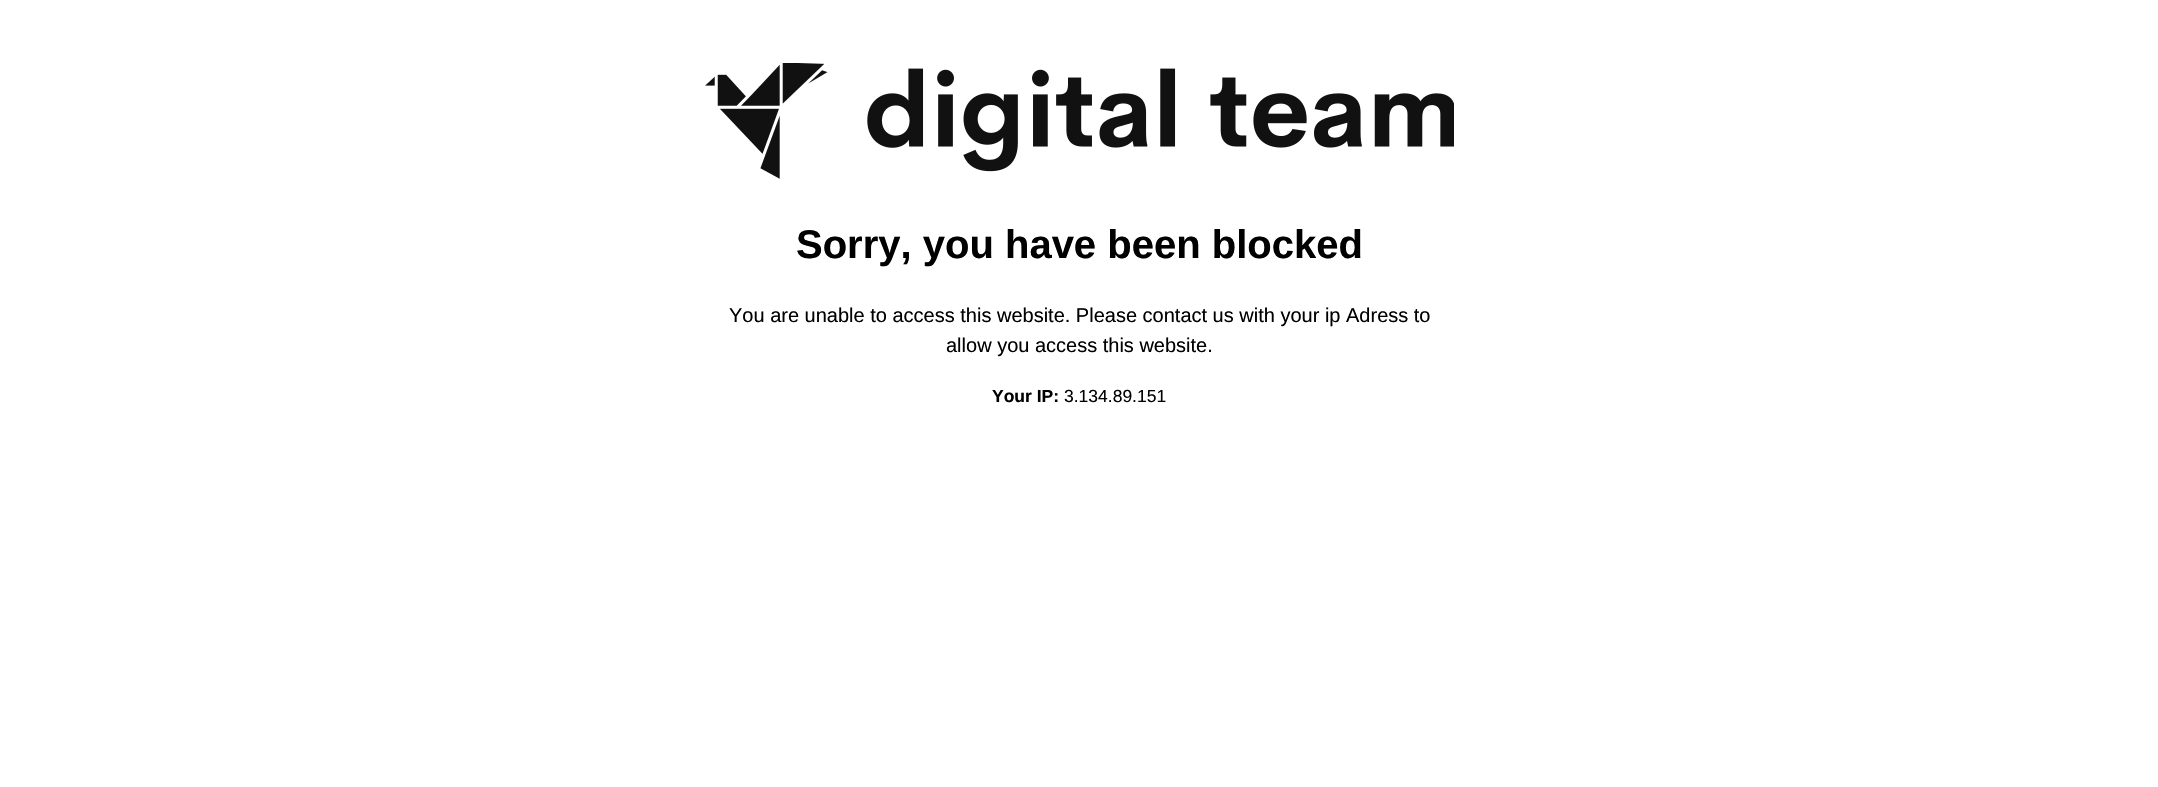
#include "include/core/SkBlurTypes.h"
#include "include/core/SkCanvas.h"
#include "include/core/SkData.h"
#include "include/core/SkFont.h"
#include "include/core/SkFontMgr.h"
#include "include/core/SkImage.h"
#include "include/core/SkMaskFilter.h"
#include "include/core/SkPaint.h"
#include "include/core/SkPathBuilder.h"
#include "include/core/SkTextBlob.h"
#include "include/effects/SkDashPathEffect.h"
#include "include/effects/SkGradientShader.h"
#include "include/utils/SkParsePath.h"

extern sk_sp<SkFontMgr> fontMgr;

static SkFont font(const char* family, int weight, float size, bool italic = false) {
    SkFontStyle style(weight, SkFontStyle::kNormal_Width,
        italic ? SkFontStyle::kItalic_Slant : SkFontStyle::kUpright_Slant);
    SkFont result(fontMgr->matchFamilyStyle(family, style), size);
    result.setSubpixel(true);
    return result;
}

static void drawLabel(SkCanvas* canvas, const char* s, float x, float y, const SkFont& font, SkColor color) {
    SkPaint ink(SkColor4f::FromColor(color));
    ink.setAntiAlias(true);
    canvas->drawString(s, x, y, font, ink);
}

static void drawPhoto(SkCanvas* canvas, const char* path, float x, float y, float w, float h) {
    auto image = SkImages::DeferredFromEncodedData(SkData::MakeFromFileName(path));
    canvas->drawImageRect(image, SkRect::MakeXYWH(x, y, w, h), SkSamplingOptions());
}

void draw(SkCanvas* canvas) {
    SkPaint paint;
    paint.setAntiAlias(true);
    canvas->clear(0xFFFFFFFF);
    drawPhoto(canvas, "assets/img1.png", 705, 63, 749, 116);
    SkFont font1 = font("Liberation Sans", 700, 40);
    drawLabel(canvas, "Sorry, you have been blocked", 796, 258, font1, 0xFF000000);
    SkFont font2 = font("Liberation Sans", 400, 20);
    drawLabel(canvas, "You are unable to access this website. Please contact us with your ip Adress to", 729, 322, font2, 0xFF000000);
    drawLabel(canvas, "allow you access this website.", 946, 352, font2, 0xFF000000);
    SkFont font3 = font("Liberation Sans", 700, 17.5f);
    drawLabel(canvas, "Your IP:", 992, 402, font3, 0xFF000000);
    SkFont font4 = font("Liberation Sans", 400, 17.5f);
    drawLabel(canvas, "3.134.89.151", 1064, 402, font4, 0xFF000000);
}
